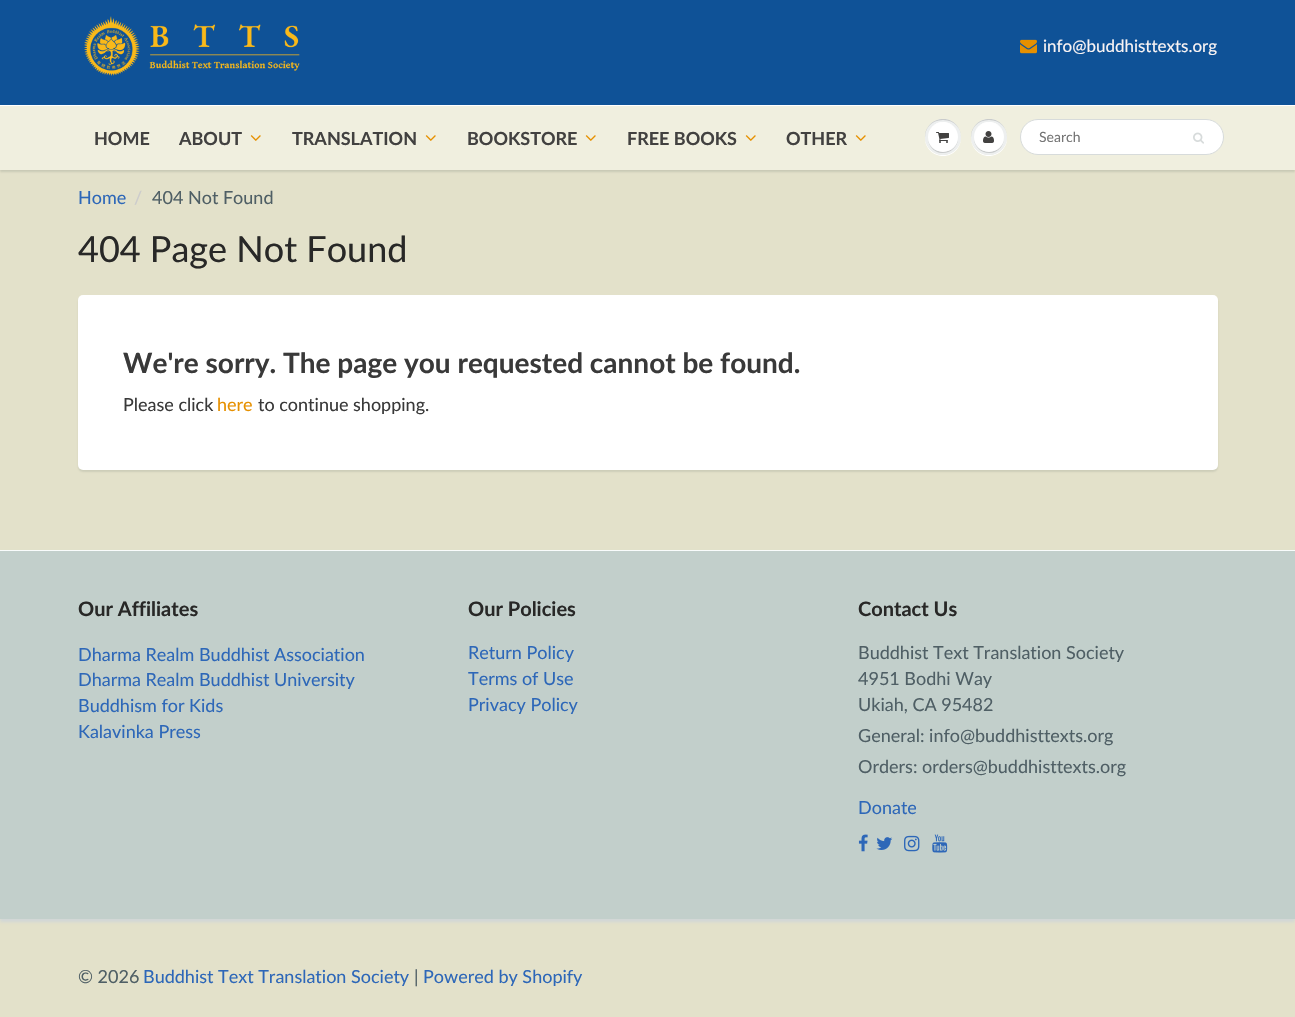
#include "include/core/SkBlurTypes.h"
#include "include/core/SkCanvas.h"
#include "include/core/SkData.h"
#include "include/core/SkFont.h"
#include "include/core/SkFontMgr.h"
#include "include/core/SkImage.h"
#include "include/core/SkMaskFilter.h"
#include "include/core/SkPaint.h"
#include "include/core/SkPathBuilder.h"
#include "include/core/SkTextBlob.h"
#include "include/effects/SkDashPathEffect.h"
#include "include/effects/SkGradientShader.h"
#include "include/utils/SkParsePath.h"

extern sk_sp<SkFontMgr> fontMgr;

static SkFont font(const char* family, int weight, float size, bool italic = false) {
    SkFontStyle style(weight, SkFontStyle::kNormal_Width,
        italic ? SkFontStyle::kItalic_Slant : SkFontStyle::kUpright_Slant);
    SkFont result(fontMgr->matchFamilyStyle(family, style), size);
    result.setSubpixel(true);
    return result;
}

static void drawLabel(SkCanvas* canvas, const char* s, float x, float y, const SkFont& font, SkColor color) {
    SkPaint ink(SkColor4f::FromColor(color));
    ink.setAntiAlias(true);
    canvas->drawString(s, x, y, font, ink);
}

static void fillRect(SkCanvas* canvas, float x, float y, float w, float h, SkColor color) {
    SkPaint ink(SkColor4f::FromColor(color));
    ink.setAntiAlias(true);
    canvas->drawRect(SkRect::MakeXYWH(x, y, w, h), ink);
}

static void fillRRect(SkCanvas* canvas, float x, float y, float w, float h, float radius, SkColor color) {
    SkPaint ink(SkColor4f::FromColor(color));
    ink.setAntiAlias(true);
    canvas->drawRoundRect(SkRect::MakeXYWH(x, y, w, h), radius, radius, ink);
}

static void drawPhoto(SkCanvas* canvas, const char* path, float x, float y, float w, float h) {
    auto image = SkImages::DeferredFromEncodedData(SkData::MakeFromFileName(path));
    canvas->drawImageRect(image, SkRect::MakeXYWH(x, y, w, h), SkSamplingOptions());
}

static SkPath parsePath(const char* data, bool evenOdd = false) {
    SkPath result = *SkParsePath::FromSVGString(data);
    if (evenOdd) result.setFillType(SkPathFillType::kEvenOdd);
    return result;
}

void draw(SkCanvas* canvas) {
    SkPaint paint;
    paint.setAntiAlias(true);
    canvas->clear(0xFF0F5297);
    drawPhoto(canvas, "assets/img1.png", 84, 16, 216, 60);
    drawPhoto(canvas, "assets/img2.png", 1020, 39, 17, 15);
    SkFont font1 = font("Lato", 400, 17);
    drawLabel(canvas, "info@buddhisttexts.org", 1043, 52, font1, 0xFFFAF4F4);
    fillRect(canvas, 0, 170, 1295, 380, 0xFFE3E1CA);
    paint.setColor(0x1F0B191C);
    paint.setMaskFilter(SkMaskFilter::MakeBlur(kNormal_SkBlurStyle, 1));
    canvas->drawRect(SkRect::MakeXYWH(0, 107, 1295, 65), paint);
    paint.setMaskFilter(nullptr);
    fillRect(canvas, 0, 106, 1295, 64, 0xFFF0EFDF);
    fillRect(canvas, 0, 105, 1295, 1, 0xFFFFFFFF);
    SkFont font2 = font("Lato", 700, 18);
    drawLabel(canvas, "HOME", 94, 145, font2, 0xFF424140);
    drawLabel(canvas, "ABOUT", 179, 145, font2, 0xFF424140);
    drawPhoto(canvas, "assets/img3.png", 250, 135, 11, 6);
    drawLabel(canvas, "TRANSLATION", 292, 145, font2, 0xFF424140);
    drawPhoto(canvas, "assets/img3.png", 425, 135, 11, 6);
    drawLabel(canvas, "BOOKSTORE", 467, 145, font2, 0xFF424140);
    drawPhoto(canvas, "assets/img3.png", 585, 135, 11, 6);
    drawLabel(canvas, "FREE BOOKS", 627, 145, font2, 0xFF424140);
    drawPhoto(canvas, "assets/img3.png", 745, 135, 11, 6);
    drawLabel(canvas, "OTHER", 786, 145, font2, 0xFF424140);
    drawPhoto(canvas, "assets/img3.png", 855, 135, 11, 6);
    paint.setColor(0xFFFFFFFF);
    canvas->drawPath(parsePath("M925 137.5C924.5 155.5 948 163 958 148C960 145 961 141 961 137.5C960.5 147 953 155 943 155C933 155 925.5 147 925 137.5Z"), paint);
    paint.setColor(0xFFEDEFEF);
    canvas->drawCircle(943, 137, 18, paint);
    paint.setColor(0xFFC9CBCB);
    canvas->drawPath(parsePath("M943 120C955 120 961 128.5 961 137.5C961 134 960 130 958 127C948 112 924.5 119.5 925 137.5C925 128.5 931 120 943 120Z"), paint);
    canvas->drawPath(parsePath("M958 137.5C957.5 156.5 928.5 156.5 928 137.5C928 140.5 929 144 930.5 146.5C939 159 958.5 152.5 958 137.5Z"), paint);
    paint.setColor(0xFFFFFFFF);
    canvas->drawCircle(943, 137, 15, paint);
    canvas->drawPath(parsePath("M943 123C953 123 958 130 958 137.5C958 134.5 957 131 955.5 128.5C947 116 927.5 122.5 928 137.5C928 130 933 123 943 123Z"), paint);
    drawPhoto(canvas, "assets/img4.png", 936, 132, 13, 11);
    canvas->drawPath(parsePath("M971 137.5C971 141 972 145 974 148C984 163 1007.5 155.5 1007 137.5C1006.5 147 999 155 989 155C979 155 971.5 147 971 137.5Z"), paint);
    paint.setColor(0xFFEDEFEF);
    canvas->drawCircle(989, 137, 18, paint);
    paint.setColor(0xFFC9CBCB);
    canvas->drawPath(parsePath("M989 120C1001 120 1007 128.5 1007 137.5C1007 134 1006 130 1004 127C994 112 970.5 119.5 971 137.5C971 128.5 977 120 989 120Z"), paint);
    canvas->drawPath(parsePath("M1004 137.5C1003.5 156.5 974.5 156.5 974 137.5C973.5 152.5 993 159 1001.5 146.5C1003 144 1004 140.5 1004 137.5Z"), paint);
    paint.setColor(0xFFFFFFFF);
    canvas->drawCircle(989, 137, 15, paint);
    canvas->drawPath(parsePath("M989 123C999 123 1004 130 1004 137.5C1004 134.5 1003 131 1001.5 128.5C993 116 973.5 122.5 974 137.5C974 130 979 123 989 123Z"), paint);
    drawPhoto(canvas, "assets/img5.png", 983, 131, 11, 12);
    canvas->drawRoundRect(SkRect::MakeXYWH(1020.5f, 119.5f, 203, 35), 17.5f, 17.5f, paint);
    paint.setStroke(true);
    paint.setStrokeWidth(1);
    paint.setColor(0xFFD7DBDB);
    canvas->drawRoundRect(SkRect::MakeXYWH(1020.5f, 119.5f, 203, 35), 17.5f, 17.5f, paint);
    SkFont font3 = font("Lato", 400, 14);
    drawLabel(canvas, "Search", 1039, 142, font3, 0xFF757575);
    drawPhoto(canvas, "assets/img6.png", 1193, 132, 11, 12);
    SkFont font4 = font("Lato", 400, 18);
    drawLabel(canvas, "Home", 78, 204, font4, 0xFF2D67B8);
    drawLabel(canvas, "/", 134, 204, font4, 0xFFCCCCCC);
    drawLabel(canvas, "404 Not Found", 152, 204, font4, 0xFF4F5F65);
    SkFont font5 = font("Lato", 400, 36);
    drawLabel(canvas, "404 Page Not Found", 78, 262, font5, 0xFF282827);
    paint.setStroke(false);
    paint.setColor(0x1A0B191C);
    paint.setMaskFilter(SkMaskFilter::MakeBlur(kNormal_SkBlurStyle, 1));
    canvas->drawRoundRect(SkRect::MakeXYWH(78, 297, 1140, 175), 5, 5, paint);
    paint.setMaskFilter(nullptr);
    fillRRect(canvas, 78, 295, 1140, 175, 5, 0xFFFFFFFF);
    SkFont font6 = font("Lato", 700, 28);
    drawLabel(canvas, "We're sorry. The page you requested cannot be found.", 123, 373, font6, 0xFF393939);
    drawLabel(canvas, "Please click", 123, 411, font4, 0xFF393939);
    drawLabel(canvas, "here", 217, 411, font4, 0xFFE69000);
    drawLabel(canvas, "to continue shopping.", 258, 411, font4, 0xFF393939);
    fillRect(canvas, 0, 919, 1295, 98, 0xFFE3E1CA);
    paint.setColor(0xFFD1D7D7);
    paint.setMaskFilter(SkMaskFilter::MakeBlur(kNormal_SkBlurStyle, 1.5f));
    canvas->drawRect(SkRect::MakeXYWH(0, 553, 1295, 369), paint);
    paint.setMaskFilter(nullptr);
    fillRect(canvas, 0, 551, 1295, 368, 0xFFC2CFCB);
    fillRect(canvas, 0, 550, 1295, 1, 0xFFF9FCFC);
    SkFont font7 = font("Lato", 700, 20);
    drawLabel(canvas, "Our Affiliates", 78, 616, font7, 0xFF282827);
    drawLabel(canvas, "Dharma Realm Buddhist Association", 78, 661, font4, 0xFF2D67B8);
    drawLabel(canvas, "Dharma Realm Buddhist University", 78, 686, font4, 0xFF2D67B8);
    drawLabel(canvas, "Buddhism for Kids", 78, 712, font4, 0xFF2D67B8);
    drawLabel(canvas, "Kalavinka Press", 78, 738, font4, 0xFF2D67B8);
    drawLabel(canvas, "Our Policies", 468, 616, font7, 0xFF282827);
    drawLabel(canvas, "Return Policy", 468, 659, font4, 0xFF2D67B8);
    drawLabel(canvas, "Terms of Use", 468, 685, font4, 0xFF2D67B8);
    drawLabel(canvas, "Privacy Policy", 468, 711, font4, 0xFF2D67B8);
    drawLabel(canvas, "Contact Us", 858, 616, font7, 0xFF282827);
    drawLabel(canvas, "Buddhist Text Translation Society", 858, 659, font4, 0xFF4F5F65);
    drawLabel(canvas, "4951 Bodhi Way", 858, 685, font4, 0xFF4F5F65);
    drawLabel(canvas, "Ukiah, CA 95482", 858, 711, font4, 0xFF4F5F65);
    drawLabel(canvas, "General: info@buddhisttexts.org", 858, 742, font4, 0xFF4F5F65);
    drawLabel(canvas, "Orders: orders@buddhisttexts.org", 858, 773, font4, 0xFF4F5F65);
    drawLabel(canvas, "Donate", 858, 814, font4, 0xFF2D67B8);
    drawPhoto(canvas, "assets/img7.png", 858, 834, 10, 18);
    drawPhoto(canvas, "assets/img8.png", 876, 837, 17, 13);
    drawPhoto(canvas, "assets/img9.png", 904, 835, 16, 17);
    drawPhoto(canvas, "assets/img10.png", 932, 834, 16, 19);
    drawLabel(canvas, "© 2026", 78, 983, font4, 0xFF4F5F65);
    drawLabel(canvas, "Buddhist Text Translation Society", 143, 983, font4, 0xFF2D67B8);
    drawLabel(canvas, "|", 414, 983, font4, 0xFF4F5F65);
    drawLabel(canvas, "Powered by Shopify", 423, 983, font4, 0xFF2D67B8);
}
